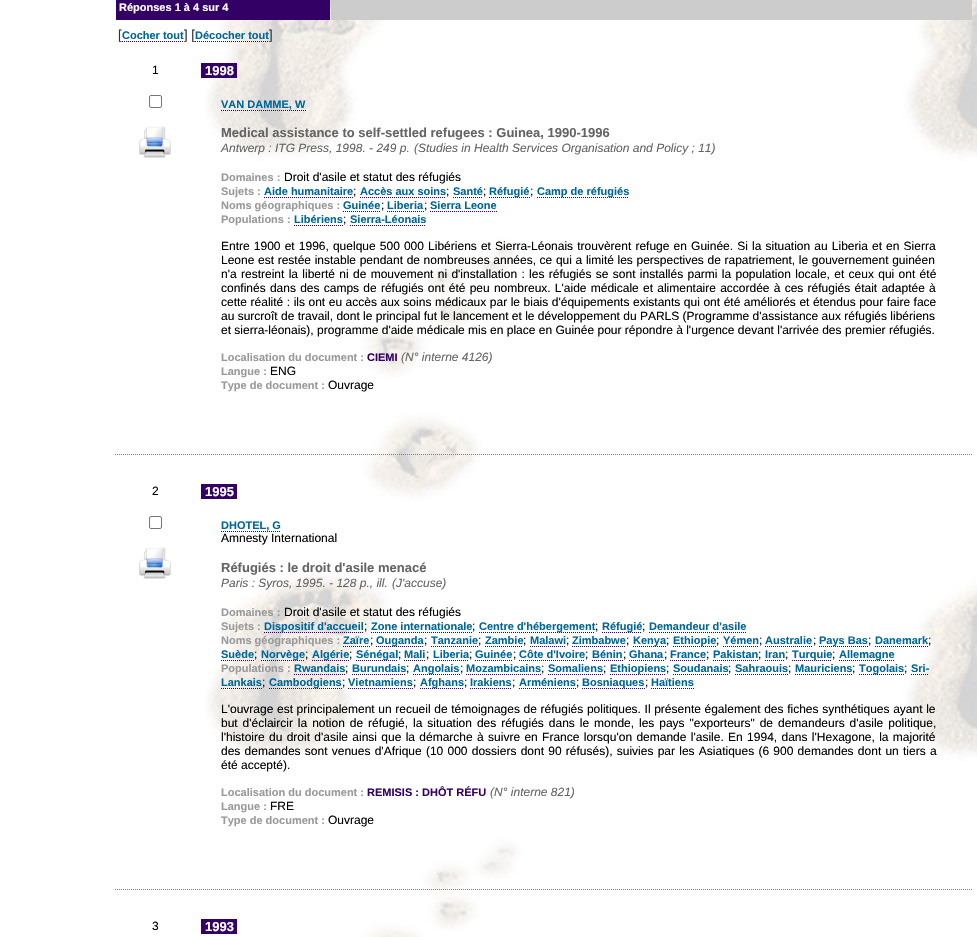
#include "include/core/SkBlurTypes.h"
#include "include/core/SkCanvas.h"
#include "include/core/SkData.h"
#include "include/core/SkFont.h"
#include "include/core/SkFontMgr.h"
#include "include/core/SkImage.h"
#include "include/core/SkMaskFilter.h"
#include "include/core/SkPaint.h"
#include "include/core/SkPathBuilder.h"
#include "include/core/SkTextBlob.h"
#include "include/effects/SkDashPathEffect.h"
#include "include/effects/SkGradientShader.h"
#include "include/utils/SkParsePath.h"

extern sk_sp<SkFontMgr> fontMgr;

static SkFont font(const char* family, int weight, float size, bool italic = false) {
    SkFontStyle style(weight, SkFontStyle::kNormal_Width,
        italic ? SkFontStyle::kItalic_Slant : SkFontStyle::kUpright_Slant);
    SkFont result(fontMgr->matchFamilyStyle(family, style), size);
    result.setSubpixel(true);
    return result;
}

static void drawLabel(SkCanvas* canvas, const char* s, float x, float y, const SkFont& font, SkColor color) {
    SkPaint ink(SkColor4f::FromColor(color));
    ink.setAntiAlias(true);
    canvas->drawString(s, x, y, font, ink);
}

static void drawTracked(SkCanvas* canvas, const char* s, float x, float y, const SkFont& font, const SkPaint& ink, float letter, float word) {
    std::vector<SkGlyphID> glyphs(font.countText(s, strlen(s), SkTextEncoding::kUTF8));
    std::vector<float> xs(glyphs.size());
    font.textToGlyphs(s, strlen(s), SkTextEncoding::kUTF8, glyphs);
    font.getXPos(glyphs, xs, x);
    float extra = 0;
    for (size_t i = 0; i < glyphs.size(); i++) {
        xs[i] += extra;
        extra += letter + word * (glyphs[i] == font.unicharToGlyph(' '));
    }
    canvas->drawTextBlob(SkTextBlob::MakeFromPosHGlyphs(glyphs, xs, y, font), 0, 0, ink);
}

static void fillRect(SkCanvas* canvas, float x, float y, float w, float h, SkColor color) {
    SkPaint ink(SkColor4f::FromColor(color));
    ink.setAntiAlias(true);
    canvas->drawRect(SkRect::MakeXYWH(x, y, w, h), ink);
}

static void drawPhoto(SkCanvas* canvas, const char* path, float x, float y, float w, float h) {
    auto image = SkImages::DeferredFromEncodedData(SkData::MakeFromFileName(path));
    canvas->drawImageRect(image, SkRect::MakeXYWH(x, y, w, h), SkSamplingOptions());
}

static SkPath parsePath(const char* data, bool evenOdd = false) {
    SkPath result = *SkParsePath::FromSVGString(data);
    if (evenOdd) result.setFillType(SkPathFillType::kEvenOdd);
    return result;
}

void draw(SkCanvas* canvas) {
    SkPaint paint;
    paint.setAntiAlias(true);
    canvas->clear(0xFFFFFFFF);
    drawPhoto(canvas, "assets/img1.png", 206, 0, 771, 937);
    fillRect(canvas, 116, 0, 214, 20, 0xFF330065);
    SkFont font1 = font("Liberation Sans", 700, 11);
    drawLabel(canvas, "Réponses 1 à 4 sur 4", 119, 11, font1, 0xFFFFFFFF);
    fillRect(canvas, 331, 0, 641, 20, 0xFFCCCCCC);
    SkFont font2 = font("Liberation Sans", 400, 13);
    drawLabel(canvas, "[", 118, 39, font2, 0xFF333333);
    drawLabel(canvas, "Cocher tout", 122, 39, font1, 0xFF006699);
    paint.setStroke(true);
    paint.setStrokeWidth(1);
    paint.setColor(0xFF330065);
    paint.setPathEffect(SkDashPathEffect::Make({{1, 1}}, 0));
    canvas->drawPath(parsePath("M122 41.5H184"), paint);
    paint.setPathEffect(nullptr);
    drawLabel(canvas, "] [", 184, 39, font2, 0xFF333333);
    drawLabel(canvas, "Décocher tout", 195, 39, font1, 0xFF006699);
    paint.setPathEffect(SkDashPathEffect::Make({{1, 1}}, 0));
    canvas->drawPath(parsePath("M195 41.5H269"), paint);
    paint.setPathEffect(nullptr);
    drawLabel(canvas, "]", 269, 39, font2, 0xFF333333);
    SkFont font3 = font("Liberation Sans", 400, 12);
    drawLabel(canvas, "1", 152, 74, font3, 0xFF000000);
    paint.setColor(0xFF767676);
    canvas->drawRoundRect(SkRect::MakeXYWH(149.5f, 95.5f, 12, 12), 1.5f, 1.5f, paint);
    drawPhoto(canvas, "assets/img2.png", 139, 126, 32, 32);
    fillRect(canvas, 201, 63, 36, 15, 0xFF330065);
    SkFont font4 = font("Liberation Sans", 700, 13);
    drawLabel(canvas, "1998", 205, 75, font4, 0xFFFFFFFF);
    drawLabel(canvas, "VAN DAMME, W", 221, 108, font1, 0xFF006699);
    paint.setColor(0xFF330065);
    paint.setPathEffect(SkDashPathEffect::Make({{1, 1}}, 0));
    canvas->drawPath(parsePath("M221 110.5H306"), paint);
    paint.setPathEffect(nullptr);
    drawLabel(canvas, "Medical assistance to self-settled refugees : Guinea, 1990-1996", 221, 137, font4, 0xFF646464);
    SkFont font5 = font("Liberation Sans", 400, 12, true);
    drawLabel(canvas, "Antwerp : ITG Press, 1998. - 249 p.", 221, 152, font5, 0xFF646464);
    drawLabel(canvas, "(Studies in Health Services Organisation and Policy ; 11)", 414, 152, font5, 0xFF646464);
    drawLabel(canvas, "Domaines :", 221, 181, font1, 0xFF999999);
    drawLabel(canvas, "Droit d'asile et statut des réfugiés", 284, 181, font3, 0xFF000000);
    drawLabel(canvas, "Sujets :", 221, 195, font1, 0xFF999999);
    drawLabel(canvas, "Aide humanitaire", 264, 195, font1, 0xFF006699);
    drawLabel(canvas, ";", 353, 195, font3, 0xFF000000);
    paint.setPathEffect(SkDashPathEffect::Make({{1, 1}}, 0));
    canvas->drawPath(parsePath("M264 197.5H353"), paint);
    paint.setPathEffect(nullptr);
    drawLabel(canvas, "Accès aux soins", 360, 195, font1, 0xFF006699);
    drawLabel(canvas, ";", 446, 195, font3, 0xFF000000);
    paint.setPathEffect(SkDashPathEffect::Make({{1, 1}}, 0));
    canvas->drawPath(parsePath("M360 197.5H446"), paint);
    paint.setPathEffect(nullptr);
    drawLabel(canvas, "Santé", 453, 195, font1, 0xFF006699);
    drawLabel(canvas, ";", 483, 195, font3, 0xFF000000);
    paint.setPathEffect(SkDashPathEffect::Make({{1, 1}}, 0));
    canvas->drawPath(parsePath("M453 197.5H483"), paint);
    paint.setPathEffect(nullptr);
    paint.setPathEffect(SkDashPathEffect::Make({{1, 1}}, 0));
    canvas->drawPath(parsePath("M489 197.5H530"), paint);
    paint.setPathEffect(nullptr);
    drawLabel(canvas, "Réfugié", 489, 195, font1, 0xFF006699);
    drawLabel(canvas, ";", 530, 195, font3, 0xFF000000);
    paint.setPathEffect(SkDashPathEffect::Make({{1, 1}}, 0));
    canvas->drawPath(parsePath("M537 197.5H629"), paint);
    paint.setPathEffect(nullptr);
    drawLabel(canvas, "Camp de réfugiés", 537, 195, font1, 0xFF006699);
    drawLabel(canvas, "Noms géographiques :", 221, 209, font1, 0xFF999999);
    drawLabel(canvas, "Guinée", 343, 209, font1, 0xFF006699);
    drawLabel(canvas, ";", 381, 209, font3, 0xFF000000);
    paint.setPathEffect(SkDashPathEffect::Make({{1, 1}}, 0));
    canvas->drawPath(parsePath("M343 211.5H381"), paint);
    paint.setPathEffect(nullptr);
    drawLabel(canvas, "Liberia", 387, 209, font1, 0xFF006699);
    drawLabel(canvas, ";", 424, 209, font3, 0xFF000000);
    paint.setPathEffect(SkDashPathEffect::Make({{1, 1}}, 0));
    canvas->drawPath(parsePath("M387 211.5H424"), paint);
    paint.setPathEffect(nullptr);
    drawLabel(canvas, "Sierra Leone", 430, 209, font1, 0xFF006699);
    paint.setPathEffect(SkDashPathEffect::Make({{1, 1}}, 0));
    canvas->drawPath(parsePath("M430 211.5H497"), paint);
    paint.setPathEffect(nullptr);
    drawLabel(canvas, "Populations :", 221, 223, font1, 0xFF999999);
    drawLabel(canvas, "Libériens", 294, 223, font1, 0xFF006699);
    drawLabel(canvas, ";", 343, 223, font3, 0xFF000000);
    paint.setPathEffect(SkDashPathEffect::Make({{1, 1}}, 0));
    canvas->drawPath(parsePath("M294 225.5H343"), paint);
    paint.setPathEffect(nullptr);
    drawLabel(canvas, "Sierra-Léonais", 350, 223, font1, 0xFF006699);
    paint.setPathEffect(SkDashPathEffect::Make({{1, 1}}, 0));
    canvas->drawPath(parsePath("M350 225.5H426"), paint);
    paint.setPathEffect(nullptr);
    paint.setStroke(false);
    paint.setColor(0xFF000000);
    drawTracked(canvas, "Entre 1900 et 1996, quelque 500 000 Libériens et Sierra-Léonais trouvèrent refuge en Guinée. Si la situation au Liberia et en Sierra", 221, 250, font3, paint, 0, 0.8f);
    drawTracked(canvas, "Leone est restée instable pendant de nombreuses années, ce qui a limité les perspectives de rapatriement, le gouvernement guinéen", 221, 264, font3, paint, 0, 0.3f);
    drawTracked(canvas, "n'a restreint la liberté ni de mouvement ni d'installation : les réfugiés se sont installés parmi la population locale, et ceux qui ont été", 221, 278, font3, paint, 0, 1);
    drawTracked(canvas, "confinés dans des camps de réfugiés ont été peu nombreux. L'aide médicale et alimentaire accordée à ces réfugiés était adaptée à", 221, 292, font3, paint, 0, 0.9f);
    drawTracked(canvas, "cette réalité : ils ont eu accès aux soins médicaux par le biais d'équipements existants qui ont été améliorés et étendus pour faire face", 221, 306, font3, paint, 0, 0.2f);
    drawLabel(canvas, "au surcroît de travail, dont le principal fut le lancement et le développement du PARLS (Programme d'assistance aux réfugiés libériens", 221, 320, font3, 0xFF000000);
    drawLabel(canvas, "et sierra-léonais), programme d'aide médicale mis en place en Guinée pour répondre à l'urgence devant l'arrivée des premier réfugiés.", 221, 334, font3, 0xFF000000);
    drawLabel(canvas, "Localisation du document :", 221, 361, font1, 0xFF999999);
    drawLabel(canvas, "CIEMI", 367, 361, font1, 0xFF340064);
    drawLabel(canvas, "(N° interne 4126)", 401, 361, font5, 0xFF646464);
    drawLabel(canvas, "Langue :", 221, 375, font1, 0xFF999999);
    drawLabel(canvas, "ENG", 270, 375, font3, 0xFF000000);
    drawLabel(canvas, "Type de document :", 221, 389, font1, 0xFF999999);
    drawLabel(canvas, "Ouvrage", 328, 389, font3, 0xFF000000);
    paint.setStroke(true);
    paint.setColor(0xFF808080);
    paint.setPathEffect(SkDashPathEffect::Make({{1, 1}}, 0));
    canvas->drawPath(parsePath("M115 454.5H973"), paint);
    paint.setPathEffect(nullptr);
    drawLabel(canvas, "2", 152, 495, font3, 0xFF000000);
    paint.setColor(0xFF767676);
    canvas->drawRoundRect(SkRect::MakeXYWH(149.5f, 516.5f, 12, 12), 1.5f, 1.5f, paint);
    drawPhoto(canvas, "assets/img2.png", 139, 547, 32, 32);
    fillRect(canvas, 201, 484, 36, 15, 0xFF330065);
    drawLabel(canvas, "1995", 205, 496, font4, 0xFFFFFFFF);
    drawLabel(canvas, "DHOTEL, G", 221, 529, font1, 0xFF006699);
    paint.setColor(0xFF330065);
    paint.setPathEffect(SkDashPathEffect::Make({{1, 1}}, 0));
    canvas->drawPath(parsePath("M221 531.5H281"), paint);
    paint.setPathEffect(nullptr);
    drawLabel(canvas, "Amnesty International", 221, 542, font3, 0xFF000000);
    drawLabel(canvas, "Réfugiés : le droit d'asile menacé", 221, 572, font4, 0xFF646464);
    drawLabel(canvas, "Paris : Syros, 1995. - 128 p., ill.", 221, 587, font5, 0xFF646464);
    drawLabel(canvas, "(J'accuse)", 392, 587, font5, 0xFF646464);
    drawLabel(canvas, "Domaines :", 221, 616, font1, 0xFF999999);
    drawLabel(canvas, "Droit d'asile et statut des réfugiés", 284, 616, font3, 0xFF000000);
    drawLabel(canvas, "Sujets :", 221, 630, font1, 0xFF999999);
    paint.setPathEffect(SkDashPathEffect::Make({{1, 1}}, 0));
    canvas->drawPath(parsePath("M264 632.5H364"), paint);
    paint.setPathEffect(nullptr);
    drawLabel(canvas, "Dispositif d'accueil", 264, 630, font1, 0xFF006699);
    drawLabel(canvas, ";", 364, 630, font3, 0xFF000000);
    drawLabel(canvas, "Zone internationale", 371, 630, font1, 0xFF006699);
    drawLabel(canvas, ";", 472, 630, font3, 0xFF000000);
    paint.setPathEffect(SkDashPathEffect::Make({{1, 1}}, 0));
    canvas->drawPath(parsePath("M371 632.5H472"), paint);
    paint.setPathEffect(nullptr);
    paint.setPathEffect(SkDashPathEffect::Make({{1, 1}}, 0));
    canvas->drawPath(parsePath("M479 632.5H595"), paint);
    paint.setPathEffect(nullptr);
    drawLabel(canvas, "Centre d'hébergement", 479, 630, font1, 0xFF006699);
    drawLabel(canvas, ";", 595, 630, font3, 0xFF000000);
    paint.setPathEffect(SkDashPathEffect::Make({{1, 1}}, 0));
    canvas->drawPath(parsePath("M602 632.5H642"), paint);
    paint.setPathEffect(nullptr);
    drawLabel(canvas, "Réfugié", 602, 630, font1, 0xFF006699);
    drawLabel(canvas, ";", 642, 630, font3, 0xFF000000);
    drawLabel(canvas, "Demandeur d'asile", 649, 630, font1, 0xFF006699);
    paint.setPathEffect(SkDashPathEffect::Make({{1, 1}}, 0));
    canvas->drawPath(parsePath("M649 632.5H746"), paint);
    paint.setPathEffect(nullptr);
    drawLabel(canvas, "Noms géographiques :", 221, 644, font1, 0xFF999999);
    drawLabel(canvas, "Zaïre", 343, 644, font1, 0xFF006699);
    drawLabel(canvas, ";", 370, 644, font3, 0xFF000000);
    paint.setPathEffect(SkDashPathEffect::Make({{1, 1}}, 0));
    canvas->drawPath(parsePath("M343 646.5H370"), paint);
    paint.setPathEffect(nullptr);
    paint.setPathEffect(SkDashPathEffect::Make({{1, 1}}, 0));
    canvas->drawPath(parsePath("M376 646.5H424"), paint);
    paint.setPathEffect(nullptr);
    drawLabel(canvas, "Ouganda", 376, 644, font1, 0xFF006699);
    drawLabel(canvas, ";", 424, 644, font3, 0xFF000000);
    drawLabel(canvas, "Tanzanie", 431, 644, font1, 0xFF006699);
    drawLabel(canvas, ";", 478, 644, font3, 0xFF000000);
    paint.setPathEffect(SkDashPathEffect::Make({{1, 1}}, 0));
    canvas->drawPath(parsePath("M431 646.5H478"), paint);
    paint.setPathEffect(nullptr);
    drawLabel(canvas, "Zambie", 485, 644, font1, 0xFF006699);
    paint.setPathEffect(SkDashPathEffect::Make({{1, 1}}, 0));
    canvas->drawPath(parsePath("M485 646.5H523"), paint);
    paint.setPathEffect(nullptr);
    drawLabel(canvas, ";", 523, 644, font3, 0xFF000000);
    drawLabel(canvas, "Malawi", 530, 644, font1, 0xFF006699);
    drawLabel(canvas, ";", 566, 644, font3, 0xFF000000);
    paint.setPathEffect(SkDashPathEffect::Make({{1, 1}}, 0));
    canvas->drawPath(parsePath("M530 646.5H566"), paint);
    paint.setPathEffect(nullptr);
    drawLabel(canvas, "Zimbabwe", 572, 644, font1, 0xFF006699);
    paint.setPathEffect(SkDashPathEffect::Make({{1, 1}}, 0));
    canvas->drawPath(parsePath("M572 646.5H626"), paint);
    paint.setPathEffect(nullptr);
    drawLabel(canvas, ";", 626, 644, font3, 0xFF000000);
    paint.setPathEffect(SkDashPathEffect::Make({{1, 1}}, 0));
    canvas->drawPath(parsePath("M633 646.5H666"), paint);
    paint.setPathEffect(nullptr);
    drawLabel(canvas, "Kenya", 633, 644, font1, 0xFF006699);
    drawLabel(canvas, ";", 666, 644, font3, 0xFF000000);
    paint.setPathEffect(SkDashPathEffect::Make({{1, 1}}, 0));
    canvas->drawPath(parsePath("M673 646.5H716"), paint);
    paint.setPathEffect(nullptr);
    drawLabel(canvas, "Ethiopie", 673, 644, font1, 0xFF006699);
    drawLabel(canvas, ";", 716, 644, font3, 0xFF000000);
    drawLabel(canvas, "Yémen", 723, 644, font1, 0xFF006699);
    drawLabel(canvas, ";", 759, 644, font3, 0xFF000000);
    paint.setPathEffect(SkDashPathEffect::Make({{1, 1}}, 0));
    canvas->drawPath(parsePath("M723 646.5H759"), paint);
    paint.setPathEffect(nullptr);
    drawLabel(canvas, "Australie", 765, 644, font1, 0xFF006699);
    drawLabel(canvas, ";", 813, 644, font3, 0xFF000000);
    paint.setPathEffect(SkDashPathEffect::Make({{1, 1}}, 0));
    canvas->drawPath(parsePath("M765 646.5H813"), paint);
    paint.setPathEffect(nullptr);
    paint.setPathEffect(SkDashPathEffect::Make({{1, 1}}, 0));
    canvas->drawPath(parsePath("M819 646.5H868"), paint);
    paint.setPathEffect(nullptr);
    drawLabel(canvas, "Pays Bas", 819, 644, font1, 0xFF006699);
    drawLabel(canvas, ";", 868, 644, font3, 0xFF000000);
    drawLabel(canvas, "Danemark", 875, 644, font1, 0xFF006699);
    drawLabel(canvas, ";", 928, 644, font3, 0xFF000000);
    paint.setPathEffect(SkDashPathEffect::Make({{1, 1}}, 0));
    canvas->drawPath(parsePath("M875 646.5H928"), paint);
    paint.setPathEffect(nullptr);
    drawLabel(canvas, "Suède", 221, 658, font1, 0xFF006699);
    drawLabel(canvas, ";", 254, 658, font3, 0xFF000000);
    paint.setPathEffect(SkDashPathEffect::Make({{1, 1}}, 0));
    canvas->drawPath(parsePath("M221 660.5H254"), paint);
    paint.setPathEffect(nullptr);
    paint.setPathEffect(SkDashPathEffect::Make({{1, 1}}, 0));
    canvas->drawPath(parsePath("M261 660.5H305"), paint);
    paint.setPathEffect(nullptr);
    drawLabel(canvas, "Norvège", 261, 658, font1, 0xFF006699);
    drawLabel(canvas, ";", 305, 658, font3, 0xFF000000);
    paint.setPathEffect(SkDashPathEffect::Make({{1, 1}}, 0));
    canvas->drawPath(parsePath("M312 660.5H349"), paint);
    paint.setPathEffect(nullptr);
    drawLabel(canvas, "Algérie", 312, 658, font1, 0xFF006699);
    drawLabel(canvas, ";", 349, 658, font3, 0xFF000000);
    paint.setPathEffect(SkDashPathEffect::Make({{1, 1}}, 0));
    canvas->drawPath(parsePath("M356 660.5H398"), paint);
    paint.setPathEffect(nullptr);
    drawLabel(canvas, "Sénégal", 356, 658, font1, 0xFF006699);
    drawLabel(canvas, ";", 398, 658, font3, 0xFF000000);
    drawLabel(canvas, "Mali", 404, 658, font1, 0xFF006699);
    drawLabel(canvas, ";", 426, 658, font3, 0xFF000000);
    paint.setPathEffect(SkDashPathEffect::Make({{1, 1}}, 0));
    canvas->drawPath(parsePath("M404 660.5H426"), paint);
    paint.setPathEffect(nullptr);
    drawLabel(canvas, "Liberia", 433, 658, font1, 0xFF006699);
    drawLabel(canvas, ";", 469, 658, font3, 0xFF000000);
    paint.setPathEffect(SkDashPathEffect::Make({{1, 1}}, 0));
    canvas->drawPath(parsePath("M433 660.5H469"), paint);
    paint.setPathEffect(nullptr);
    drawLabel(canvas, "Guinée", 475, 658, font1, 0xFF006699);
    drawLabel(canvas, ";", 513, 658, font3, 0xFF000000);
    paint.setPathEffect(SkDashPathEffect::Make({{1, 1}}, 0));
    canvas->drawPath(parsePath("M475 660.5H513"), paint);
    paint.setPathEffect(nullptr);
    drawLabel(canvas, "Côte d'Ivoire", 519, 658, font1, 0xFF006699);
    drawLabel(canvas, ";", 585, 658, font3, 0xFF000000);
    paint.setPathEffect(SkDashPathEffect::Make({{1, 1}}, 0));
    canvas->drawPath(parsePath("M519 660.5H585"), paint);
    paint.setPathEffect(nullptr);
    drawLabel(canvas, "Bénin", 592, 658, font1, 0xFF006699);
    drawLabel(canvas, ";", 623, 658, font3, 0xFF000000);
    paint.setPathEffect(SkDashPathEffect::Make({{1, 1}}, 0));
    canvas->drawPath(parsePath("M592 660.5H623"), paint);
    paint.setPathEffect(nullptr);
    drawLabel(canvas, "Ghana", 629, 658, font1, 0xFF006699);
    drawLabel(canvas, ";", 664, 658, font3, 0xFF000000);
    paint.setPathEffect(SkDashPathEffect::Make({{1, 1}}, 0));
    canvas->drawPath(parsePath("M629 660.5H664"), paint);
    paint.setPathEffect(nullptr);
    drawLabel(canvas, "France", 670, 658, font1, 0xFF006699);
    paint.setPathEffect(SkDashPathEffect::Make({{1, 1}}, 0));
    canvas->drawPath(parsePath("M670 660.5H706"), paint);
    paint.setPathEffect(nullptr);
    drawLabel(canvas, ";", 706, 658, font3, 0xFF000000);
    drawLabel(canvas, "Pakistan", 713, 658, font1, 0xFF006699);
    drawLabel(canvas, ";", 758, 658, font3, 0xFF000000);
    paint.setPathEffect(SkDashPathEffect::Make({{1, 1}}, 0));
    canvas->drawPath(parsePath("M713 660.5H758"), paint);
    paint.setPathEffect(nullptr);
    drawLabel(canvas, "Iran", 765, 658, font1, 0xFF006699);
    paint.setPathEffect(SkDashPathEffect::Make({{1, 1}}, 0));
    canvas->drawPath(parsePath("M765 660.5H785"), paint);
    paint.setPathEffect(nullptr);
    drawLabel(canvas, ";", 785, 658, font3, 0xFF000000);
    paint.setPathEffect(SkDashPathEffect::Make({{1, 1}}, 0));
    canvas->drawPath(parsePath("M792 660.5H832"), paint);
    paint.setPathEffect(nullptr);
    drawLabel(canvas, "Turquie", 792, 658, font1, 0xFF006699);
    drawLabel(canvas, ";", 832, 658, font3, 0xFF000000);
    paint.setPathEffect(SkDashPathEffect::Make({{1, 1}}, 0));
    canvas->drawPath(parsePath("M839 660.5H894"), paint);
    paint.setPathEffect(nullptr);
    drawLabel(canvas, "Allemagne", 839, 658, font1, 0xFF006699);
    drawLabel(canvas, "Populations :", 221, 672, font1, 0xFF999999);
    drawLabel(canvas, "Rwandais", 294, 672, font1, 0xFF006699);
    drawLabel(canvas, ";", 345, 672, font3, 0xFF000000);
    paint.setPathEffect(SkDashPathEffect::Make({{1, 1}}, 0));
    canvas->drawPath(parsePath("M294 674.5H345"), paint);
    paint.setPathEffect(nullptr);
    drawLabel(canvas, "Burundais", 352, 672, font1, 0xFF006699);
    paint.setPathEffect(SkDashPathEffect::Make({{1, 1}}, 0));
    canvas->drawPath(parsePath("M352 674.5H406"), paint);
    paint.setPathEffect(nullptr);
    drawLabel(canvas, ";", 406, 672, font3, 0xFF000000);
    paint.setPathEffect(SkDashPathEffect::Make({{1, 1}}, 0));
    canvas->drawPath(parsePath("M413 674.5H460"), paint);
    paint.setPathEffect(nullptr);
    drawLabel(canvas, "Angolais", 413, 672, font1, 0xFF006699);
    drawLabel(canvas, ";", 460, 672, font3, 0xFF000000);
    drawLabel(canvas, "Mozambicains", 466, 672, font1, 0xFF006699);
    drawLabel(canvas, ";", 541, 672, font3, 0xFF000000);
    paint.setPathEffect(SkDashPathEffect::Make({{1, 1}}, 0));
    canvas->drawPath(parsePath("M466 674.5H541"), paint);
    paint.setPathEffect(nullptr);
    drawLabel(canvas, "Somaliens", 548, 672, font1, 0xFF006699);
    drawLabel(canvas, ";", 603, 672, font3, 0xFF000000);
    paint.setPathEffect(SkDashPathEffect::Make({{1, 1}}, 0));
    canvas->drawPath(parsePath("M548 674.5H603"), paint);
    paint.setPathEffect(nullptr);
    paint.setPathEffect(SkDashPathEffect::Make({{1, 1}}, 0));
    canvas->drawPath(parsePath("M610 674.5H666"), paint);
    paint.setPathEffect(nullptr);
    drawLabel(canvas, "Ethiopiens", 610, 672, font1, 0xFF006699);
    drawLabel(canvas, ";", 666, 672, font3, 0xFF000000);
    drawLabel(canvas, "Soudanais", 673, 672, font1, 0xFF006699);
    drawLabel(canvas, ";", 728, 672, font3, 0xFF000000);
    paint.setPathEffect(SkDashPathEffect::Make({{1, 1}}, 0));
    canvas->drawPath(parsePath("M673 674.5H728"), paint);
    paint.setPathEffect(nullptr);
    drawLabel(canvas, "Sahraouis", 735, 672, font1, 0xFF006699);
    drawLabel(canvas, ";", 788, 672, font3, 0xFF000000);
    paint.setPathEffect(SkDashPathEffect::Make({{1, 1}}, 0));
    canvas->drawPath(parsePath("M735 674.5H788"), paint);
    paint.setPathEffect(nullptr);
    drawLabel(canvas, "Mauriciens", 795, 672, font1, 0xFF006699);
    drawLabel(canvas, ";", 852, 672, font3, 0xFF000000);
    paint.setPathEffect(SkDashPathEffect::Make({{1, 1}}, 0));
    canvas->drawPath(parsePath("M795 674.5H852"), paint);
    paint.setPathEffect(nullptr);
    paint.setPathEffect(SkDashPathEffect::Make({{1, 1}}, 0));
    canvas->drawPath(parsePath("M859 674.5H904"), paint);
    paint.setPathEffect(nullptr);
    drawLabel(canvas, "Togolais", 859, 672, font1, 0xFF006699);
    drawLabel(canvas, ";", 904, 672, font3, 0xFF000000);
    drawLabel(canvas, "Sri-", 911, 672, font1, 0xFF006699);
    paint.setPathEffect(SkDashPathEffect::Make({{1, 1}}, 0));
    canvas->drawPath(parsePath("M911 674.5H929"), paint);
    paint.setPathEffect(nullptr);
    drawLabel(canvas, "Lankais", 221, 686, font1, 0xFF006699);
    drawLabel(canvas, ";", 262, 686, font3, 0xFF000000);
    paint.setPathEffect(SkDashPathEffect::Make({{1, 1}}, 0));
    canvas->drawPath(parsePath("M221 688.5H262"), paint);
    paint.setPathEffect(nullptr);
    paint.setPathEffect(SkDashPathEffect::Make({{1, 1}}, 0));
    canvas->drawPath(parsePath("M269 688.5H342"), paint);
    paint.setPathEffect(nullptr);
    drawLabel(canvas, "Cambodgiens", 269, 686, font1, 0xFF006699);
    drawLabel(canvas, ";", 342, 686, font3, 0xFF000000);
    drawLabel(canvas, "Vietnamiens", 348, 686, font1, 0xFF006699);
    drawLabel(canvas, ";", 413, 686, font3, 0xFF000000);
    paint.setPathEffect(SkDashPathEffect::Make({{1, 1}}, 0));
    canvas->drawPath(parsePath("M348 688.5H413"), paint);
    paint.setPathEffect(nullptr);
    paint.setPathEffect(SkDashPathEffect::Make({{1, 1}}, 0));
    canvas->drawPath(parsePath("M420 688.5H464"), paint);
    paint.setPathEffect(nullptr);
    drawLabel(canvas, "Afghans", 420, 686, font1, 0xFF006699);
    drawLabel(canvas, ";", 464, 686, font3, 0xFF000000);
    drawLabel(canvas, "Irakiens", 470, 686, font1, 0xFF006699);
    paint.setPathEffect(SkDashPathEffect::Make({{1, 1}}, 0));
    canvas->drawPath(parsePath("M470 688.5H512"), paint);
    paint.setPathEffect(nullptr);
    drawLabel(canvas, ";", 512, 686, font3, 0xFF000000);
    drawLabel(canvas, "Arméniens", 519, 686, font1, 0xFF006699);
    drawLabel(canvas, ";", 576, 686, font3, 0xFF000000);
    paint.setPathEffect(SkDashPathEffect::Make({{1, 1}}, 0));
    canvas->drawPath(parsePath("M519 688.5H576"), paint);
    paint.setPathEffect(nullptr);
    paint.setPathEffect(SkDashPathEffect::Make({{1, 1}}, 0));
    canvas->drawPath(parsePath("M582 688.5H645"), paint);
    paint.setPathEffect(nullptr);
    drawLabel(canvas, "Bosniaques", 582, 686, font1, 0xFF006699);
    drawLabel(canvas, ";", 645, 686, font3, 0xFF000000);
    drawLabel(canvas, "Haïtiens", 651, 686, font1, 0xFF006699);
    paint.setPathEffect(SkDashPathEffect::Make({{1, 1}}, 0));
    canvas->drawPath(parsePath("M651 688.5H694"), paint);
    paint.setPathEffect(nullptr);
    paint.setStroke(false);
    paint.setColor(0xFF000000);
    drawTracked(canvas, "L'ouvrage est principalement un recueil de témoignages de réfugiés politiques. Il présente également des fiches synthétiques ayant le", 221, 713, font3, paint, 0, 0.3f);
    drawTracked(canvas, "but d'éclaircir la notion de réfugié, la situation des réfugiés dans le monde, les pays \"exporteurs\" de demandeurs d'asile politique,", 221, 727, font3, paint, 0, 1.6f);
    drawTracked(canvas, "l'histoire du droit d'asile ainsi que la démarche à suivre en France lorsqu'on demande l'asile. En 1994, dans l'Hexagone, la majorité", 221, 741, font3, paint, 0, 1);
    drawTracked(canvas, "des demandes sont venues d'Afrique (10 000 dossiers dont 90 réfusés), suivies par les Asiatiques (6 900 demandes dont un tiers a", 221, 755, font3, paint, 0, 0.9f);
    drawLabel(canvas, "été accepté).", 221, 769, font3, 0xFF000000);
    drawLabel(canvas, "Localisation du document :", 221, 796, font1, 0xFF999999);
    drawLabel(canvas, "REMISIS : DHÔT RÉFU", 367, 796, font1, 0xFF340064);
    drawLabel(canvas, "(N° interne 821)", 490, 796, font5, 0xFF646464);
    drawLabel(canvas, "Langue :", 221, 810, font1, 0xFF999999);
    drawLabel(canvas, "FRE", 270, 810, font3, 0xFF000000);
    drawLabel(canvas, "Type de document :", 221, 824, font1, 0xFF999999);
    drawLabel(canvas, "Ouvrage", 328, 824, font3, 0xFF000000);
    paint.setStroke(true);
    paint.setColor(0xFF808080);
    paint.setPathEffect(SkDashPathEffect::Make({{1, 1}}, 0));
    canvas->drawPath(parsePath("M115 889.5H973"), paint);
    paint.setPathEffect(nullptr);
    drawLabel(canvas, "3", 152, 930, font3, 0xFF000000);
    fillRect(canvas, 201, 919, 36, 15, 0xFF330065);
    drawLabel(canvas, "1993", 205, 931, font4, 0xFFFFFFFF);
}
